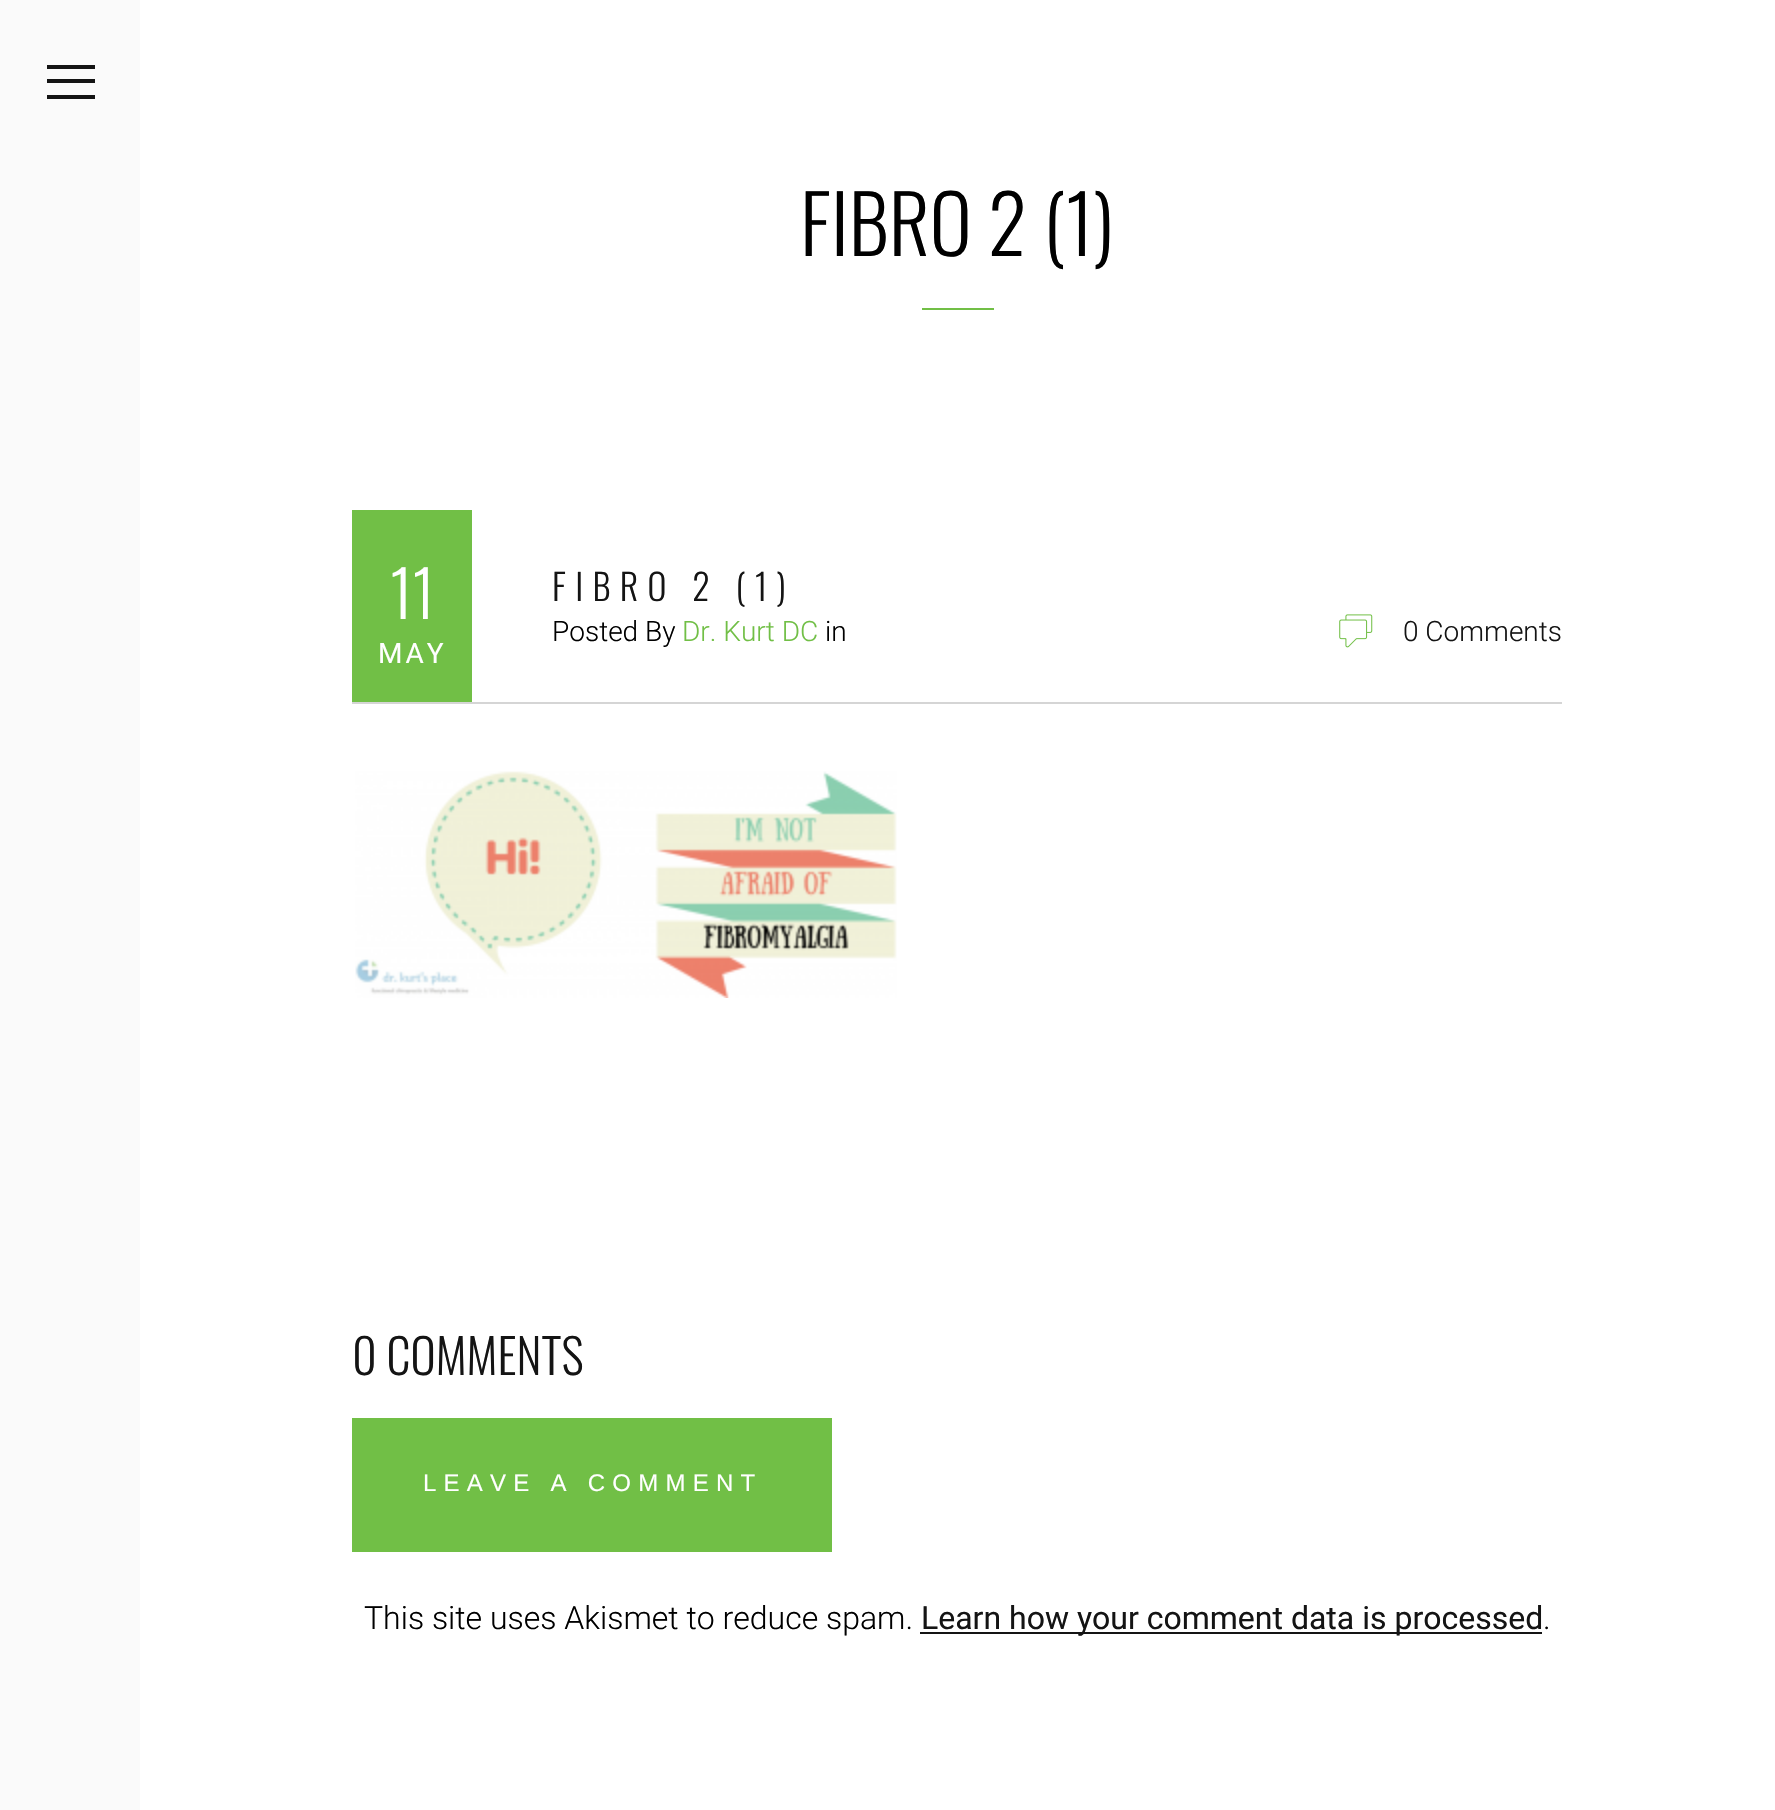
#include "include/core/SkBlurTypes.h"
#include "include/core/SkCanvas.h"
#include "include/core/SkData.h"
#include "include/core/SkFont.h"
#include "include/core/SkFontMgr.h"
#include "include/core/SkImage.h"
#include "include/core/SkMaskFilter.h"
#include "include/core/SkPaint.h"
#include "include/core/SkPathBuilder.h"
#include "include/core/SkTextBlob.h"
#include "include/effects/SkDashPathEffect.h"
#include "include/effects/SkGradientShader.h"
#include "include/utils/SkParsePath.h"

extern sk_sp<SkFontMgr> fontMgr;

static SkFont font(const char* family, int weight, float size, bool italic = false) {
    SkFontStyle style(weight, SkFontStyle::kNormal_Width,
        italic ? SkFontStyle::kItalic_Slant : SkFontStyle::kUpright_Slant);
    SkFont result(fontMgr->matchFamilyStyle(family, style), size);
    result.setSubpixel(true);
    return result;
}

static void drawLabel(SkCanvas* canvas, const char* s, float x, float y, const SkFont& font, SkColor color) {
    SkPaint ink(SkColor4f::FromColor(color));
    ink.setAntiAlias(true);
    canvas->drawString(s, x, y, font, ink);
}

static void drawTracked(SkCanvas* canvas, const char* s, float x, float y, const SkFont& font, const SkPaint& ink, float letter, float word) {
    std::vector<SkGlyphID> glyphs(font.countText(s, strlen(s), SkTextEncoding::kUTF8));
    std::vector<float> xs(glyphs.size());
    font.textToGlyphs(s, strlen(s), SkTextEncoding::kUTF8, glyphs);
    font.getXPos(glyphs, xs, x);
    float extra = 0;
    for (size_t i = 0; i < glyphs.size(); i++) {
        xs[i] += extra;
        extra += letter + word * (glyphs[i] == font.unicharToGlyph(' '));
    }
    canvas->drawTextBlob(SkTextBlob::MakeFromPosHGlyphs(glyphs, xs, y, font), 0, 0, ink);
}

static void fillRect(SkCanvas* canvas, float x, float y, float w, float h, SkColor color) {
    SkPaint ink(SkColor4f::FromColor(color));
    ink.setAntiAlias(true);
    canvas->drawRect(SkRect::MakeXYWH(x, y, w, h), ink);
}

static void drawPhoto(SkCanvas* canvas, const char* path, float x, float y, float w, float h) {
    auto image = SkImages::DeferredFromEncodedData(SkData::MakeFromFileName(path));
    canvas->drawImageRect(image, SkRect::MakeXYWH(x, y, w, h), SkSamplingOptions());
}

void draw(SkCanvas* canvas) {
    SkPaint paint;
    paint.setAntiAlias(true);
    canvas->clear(0xFFFFFFFF);
    fillRect(canvas, 0, 0, 140, 1810, 0xFFFAFAFA);
    fillRect(canvas, 47, 65, 48, 4, 0xFF141414);
    fillRect(canvas, 47, 79, 48, 4, 0xFF141414);
    fillRect(canvas, 47, 95, 48, 4, 0xFF141414);
    SkFont font1 = font("Oswald", 300, 80);
    drawLabel(canvas, "FIBRO 2 (1)", 800, 256, font1, 0xFF000000);
    fillRect(canvas, 922, 308, 72, 2, 0xFF71BF46);
    fillRect(canvas, 352, 510, 120, 192, 0xFF71BF46);
    SkFont font2 = font("Oswald", 300, 64);
    drawLabel(canvas, "11", 390, 619, font2, 0xFFFFFFFF);
    SkFont font3 = font("Roboto", 400, 28);
    paint.setColor(0xFFFFFFFF);
    drawTracked(canvas, "MAY", 378, 663, font3, paint, 3, 0);
    SkFont font4 = font("Oswald", 300, 36);
    paint.setColor(0xFF141414);
    drawTracked(canvas, "FIBRO 2 (1)", 552, 601, font4, paint, 9.25f, 0);
    SkFont font5 = font("Roboto", 300, 28);
    drawLabel(canvas, "Posted By", 552, 641, font5, 0xFF000000);
    drawLabel(canvas, "Dr. Kurt DC", 682, 641, font5, 0xFF71BF46);
    drawLabel(canvas, "in", 825, 641, font5, 0xFF000000);
    drawPhoto(canvas, "assets/img1.png", 1339, 614, 34, 34);
    drawLabel(canvas, "0 Comments", 1403, 641, font5, 0xFF141414);
    fillRect(canvas, 352, 702, 1210, 2, 0xFFD5D5D5);
    drawPhoto(canvas, "assets/img2.png", 355, 771, 542, 227);
    SkFont font6 = font("Oswald", 300, 48);
    drawLabel(canvas, "0 COMMENTS", 352, 1375, font6, 0xFF141414);
    fillRect(canvas, 352, 1418, 480, 134, 0xFF71BF46);
    SkFont font7 = font("Liberation Sans", 400, 24);
    paint.setColor(0xFFFFFFFF);
    drawTracked(canvas, "LEAVE A COMMENT", 423, 1491, font7, paint, 7.25f, 0);
    SkFont font8 = font("Roboto", 300, 32);
    drawLabel(canvas, "This site uses Akismet to reduce spam.", 364, 1629, font8, 0xFF000000);
    fillRect(canvas, 920, 1632, 622, 2, 0xFF141414);
    SkFont font9 = font("Roboto", 400, 32);
    drawLabel(canvas, "Learn how your comment data is processed", 921, 1629, font9, 0xFF141414);
    drawLabel(canvas, ".", 1543, 1629, font8, 0xFF000000);
}
